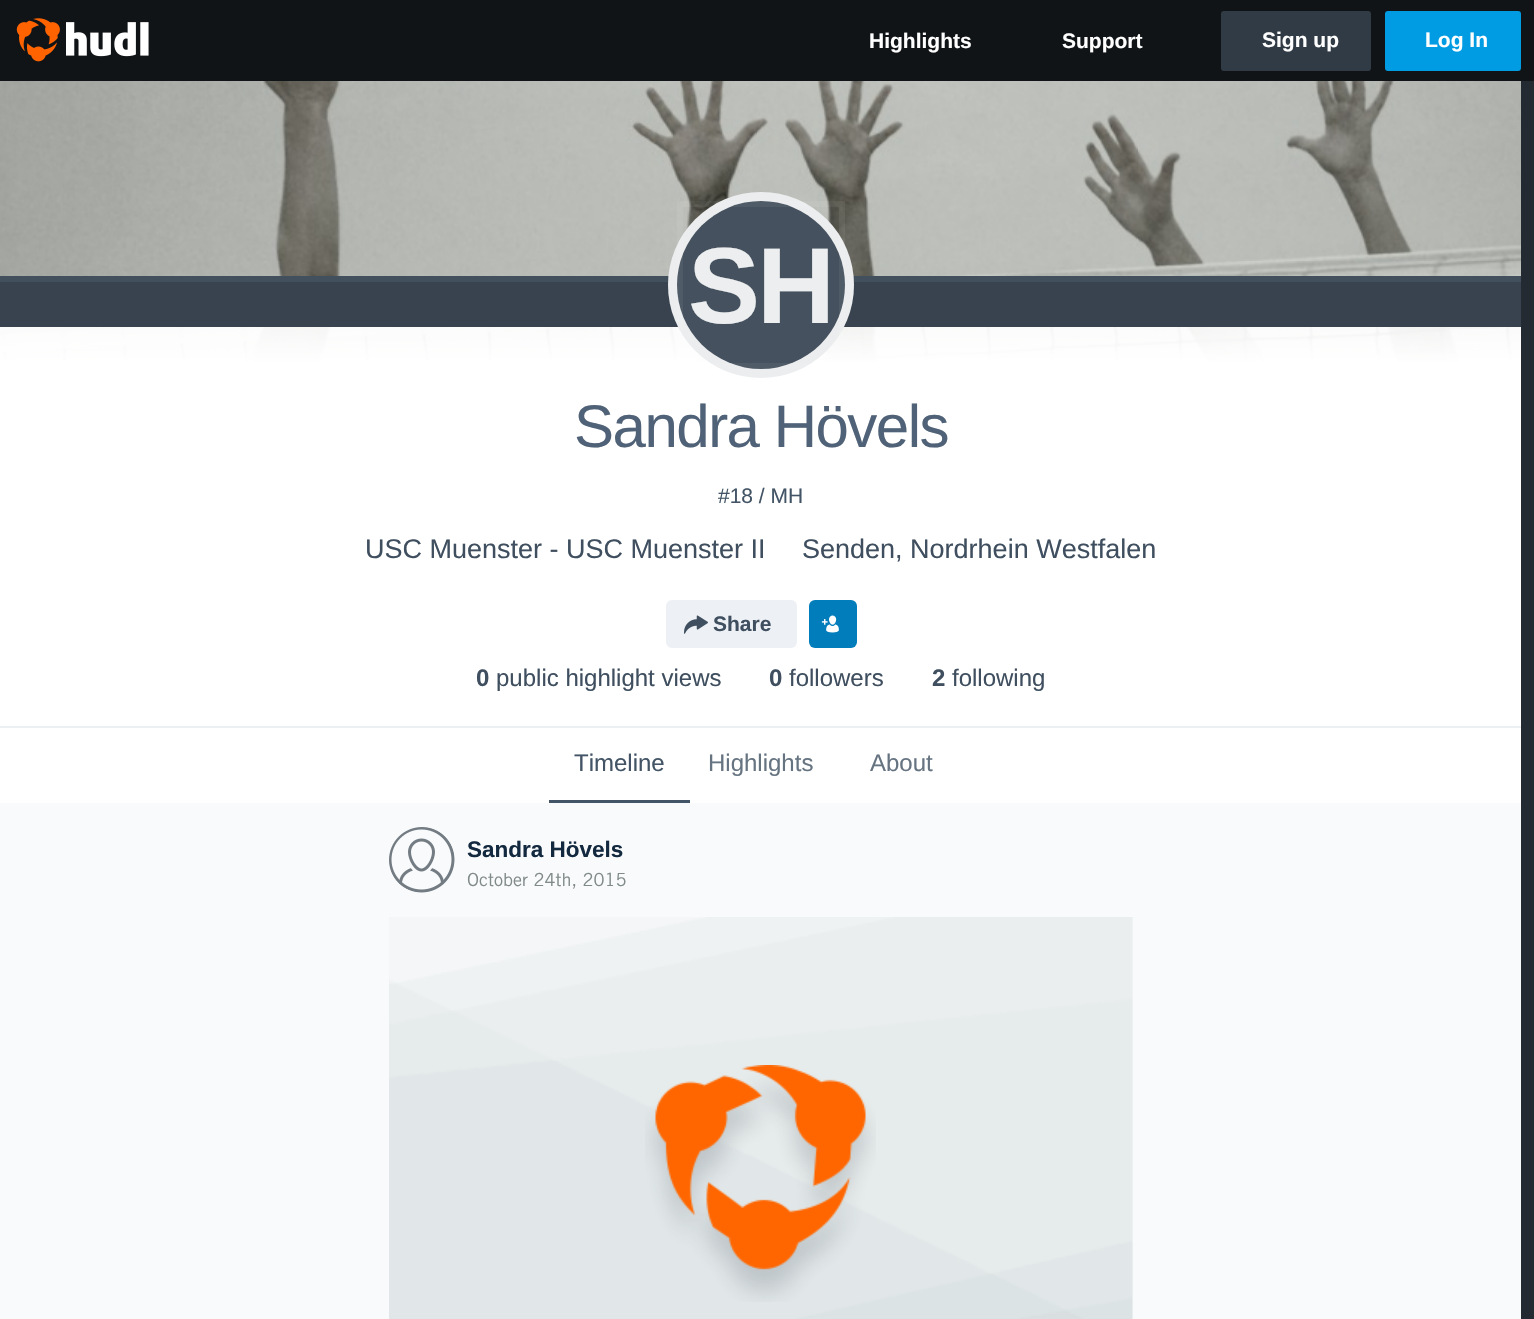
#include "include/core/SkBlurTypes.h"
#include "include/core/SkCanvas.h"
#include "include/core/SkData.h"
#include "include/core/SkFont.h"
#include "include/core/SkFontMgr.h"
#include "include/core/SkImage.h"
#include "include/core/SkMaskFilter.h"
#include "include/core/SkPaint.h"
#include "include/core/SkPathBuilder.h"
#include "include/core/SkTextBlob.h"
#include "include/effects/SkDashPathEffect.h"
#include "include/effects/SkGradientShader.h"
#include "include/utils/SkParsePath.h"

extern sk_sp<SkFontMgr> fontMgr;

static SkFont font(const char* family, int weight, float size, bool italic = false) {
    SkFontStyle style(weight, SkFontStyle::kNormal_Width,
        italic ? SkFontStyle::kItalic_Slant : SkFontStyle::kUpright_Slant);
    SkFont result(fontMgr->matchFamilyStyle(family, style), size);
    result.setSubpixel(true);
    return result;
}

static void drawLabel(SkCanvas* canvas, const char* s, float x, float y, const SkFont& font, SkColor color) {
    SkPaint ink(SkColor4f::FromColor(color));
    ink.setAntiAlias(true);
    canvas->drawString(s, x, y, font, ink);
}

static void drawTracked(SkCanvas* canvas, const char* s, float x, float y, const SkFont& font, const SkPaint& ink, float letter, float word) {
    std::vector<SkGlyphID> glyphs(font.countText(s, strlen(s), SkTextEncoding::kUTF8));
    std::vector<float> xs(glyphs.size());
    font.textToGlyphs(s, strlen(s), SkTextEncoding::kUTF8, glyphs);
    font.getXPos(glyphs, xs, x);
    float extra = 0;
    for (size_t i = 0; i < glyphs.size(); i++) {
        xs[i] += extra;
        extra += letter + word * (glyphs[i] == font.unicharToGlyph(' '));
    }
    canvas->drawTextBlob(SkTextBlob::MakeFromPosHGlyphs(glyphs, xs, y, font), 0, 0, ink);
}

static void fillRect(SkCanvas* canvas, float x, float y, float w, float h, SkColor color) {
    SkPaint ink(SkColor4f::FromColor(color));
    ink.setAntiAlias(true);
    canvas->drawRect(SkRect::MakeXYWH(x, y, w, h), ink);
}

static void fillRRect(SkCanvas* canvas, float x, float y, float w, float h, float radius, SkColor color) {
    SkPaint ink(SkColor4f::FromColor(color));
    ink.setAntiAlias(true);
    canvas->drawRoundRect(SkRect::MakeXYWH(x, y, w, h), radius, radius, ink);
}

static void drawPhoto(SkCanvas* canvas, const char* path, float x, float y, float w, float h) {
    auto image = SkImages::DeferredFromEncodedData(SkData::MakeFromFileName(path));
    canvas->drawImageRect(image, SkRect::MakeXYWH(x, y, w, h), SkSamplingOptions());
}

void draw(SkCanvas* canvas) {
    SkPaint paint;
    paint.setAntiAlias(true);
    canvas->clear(0xFF232A31);
    fillRect(canvas, 0, 0, 1534, 81, 0xFF101417);
    drawPhoto(canvas, "assets/img1.png", 16, 18, 133, 44);
    SkFont font1 = font("Liberation Sans", 700, 21);
    drawLabel(canvas, "Highlights", 869, 48, font1, 0xFFFFFFFF);
    drawLabel(canvas, "Support", 1062, 48, font1, 0xFFFFFFFF);
    paint.setColor(0xFF313B45);
    canvas->drawRoundRect(SkRect::MakeXYWH(1223.5f, 13.5f, 145, 55), 0.5f, 0.5f, paint);
    paint.setStroke(true);
    paint.setStrokeWidth(5);
    canvas->drawRoundRect(SkRect::MakeXYWH(1223.5f, 13.5f, 145, 55), 0.5f, 0.5f, paint);
    drawLabel(canvas, "Sign up", 1262, 47, font1, 0xFFFFFFFF);
    paint.setStroke(false);
    paint.setColor(0xFF009CE3);
    canvas->drawRoundRect(SkRect::MakeXYWH(1387.5f, 13.5f, 131, 55), 0.5f, 0.5f, paint);
    paint.setStroke(true);
    canvas->drawRoundRect(SkRect::MakeXYWH(1387.5f, 13.5f, 131, 55), 0.5f, 0.5f, paint);
    drawLabel(canvas, "Log In", 1425, 47, font1, 0xFFFFFFFF);
    drawPhoto(canvas, "assets/img2.png", 0, 81, 1521, 281);
    paint.setStroke(false);
    {
        const SkColor colors[] = {0xD9FFFFFF, 0xFFFFFFFF};
        const float stops[] = {0, 0.2f};
        const SkPoint ends[] = {{761, 276}, {761, 726}};
        paint.setShader(SkGradientShader::MakeLinear(ends, colors, stops, 2, SkTileMode::kClamp));
        paint.setAlpha(255);
    }
    canvas->drawRect(SkRect::MakeXYWH(0, 327, 1521, 399), paint);
    fillRect(canvas, 0, 726, 1521, 2, 0xFFEDF0F2);
    fillRect(canvas, 0, 276, 1521, 6, 0xFF424F5C);
    fillRect(canvas, 0, 282, 1521, 45, 0xFF38434F);
    paint.setShader(nullptr);
    paint.setColor(0xFFFFFFFF);
    canvas->drawCircle(761, 285, 93, paint);
    paint.setStroke(true);
    paint.setStrokeWidth(9);
    paint.setColor(0x1A45525E);
    canvas->drawCircle(761, 285, 88.5f, paint);
    paint.setStroke(false);
    paint.setColor(0xFF45515E);
    canvas->drawCircle(761, 285, 84, paint);
    paint.setStroke(true);
    paint.setStrokeWidth(6);
    paint.setColor(0x0FFFFFFF);
    canvas->drawRect(SkRect::MakeXYWH(680, 204, 162, 162), paint);
    SkFont font2 = font("Liberation Sans", 700, 108);
    paint.setStroke(false);
    paint.setColor(0xFFECEEEF);
    drawTracked(canvas, "SH", 688, 323, font2, paint, -3, 0);
    SkFont font3 = font("Liberation Sans", 400, 60);
    paint.setColor(0xFF506277);
    drawTracked(canvas, "Sandra Hövels", 574, 447, font3, paint, -1.5f, 0);
    SkFont font4 = font("Liberation Sans", 400, 21);
    drawLabel(canvas, "#18 / MH", 718, 503, font4, 0xFF425465);
    SkFont font5 = font("Liberation Sans", 400, 27);
    drawLabel(canvas, "USC Muenster - USC Muenster II", 365, 558, font5, 0xFF3F4F5F);
    drawLabel(canvas, "Senden, Nordrhein Westfalen", 802, 558, font5, 0xFF3F4F5F);
    fillRRect(canvas, 666, 600, 131, 48, 6, 0xFFEDF1F5);
    drawPhoto(canvas, "assets/img3.png", 684, 615, 24, 19);
    drawLabel(canvas, "Share", 713, 631, font1, 0xFF3F4F5F);
    fillRRect(canvas, 809, 600, 48, 48, 6, 0xFF027DBB);
    drawPhoto(canvas, "assets/img4.png", 821, 615, 18, 18);
    SkFont font6 = font("Liberation Sans", 700, 24);
    drawLabel(canvas, "0", 476, 686, font6, 0xFF3F4F5F);
    SkFont font7 = font("Liberation Sans", 400, 24);
    drawLabel(canvas, "public highlight views", 496, 686, font7, 0xFF3F4F5F);
    drawLabel(canvas, "0", 769, 686, font6, 0xFF3F4F5F);
    drawLabel(canvas, "followers", 789, 686, font7, 0xFF3F4F5F);
    drawLabel(canvas, "2", 932, 686, font6, 0xFF3F4F5F);
    drawLabel(canvas, "following", 952, 686, font7, 0xFF3F4F5F);
    fillRect(canvas, 0, 728, 1521, 75, 0xFFFFFFFF);
    fillRect(canvas, 549, 800, 141, 3, 0xFF425465);
    drawLabel(canvas, "Timeline", 574, 771, font7, 0xFF425465);
    drawLabel(canvas, "Highlights", 708, 771, font7, 0xFF667482);
    drawLabel(canvas, "About", 870, 771, font7, 0xFF667482);
    fillRect(canvas, 0, 803, 1521, 516, 0xFFF9FAFB);
    drawPhoto(canvas, "assets/img5.png", 389, 827, 66, 66);
    SkFont font8 = font("Liberation Sans", 700, 22.5f);
    drawLabel(canvas, "Sandra Hövels", 467, 857, font8, 0xFF13293F);
    SkFont font9 = font("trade", 400, 18);
    drawLabel(canvas, "October 24th, 2015", 467, 886, font9, 0xFF818A8A);
    drawPhoto(canvas, "assets/img6.png", 389, 917, 744, 402);
    drawPhoto(canvas, "assets/img7.png", 645, 1065, 231, 237);
}
